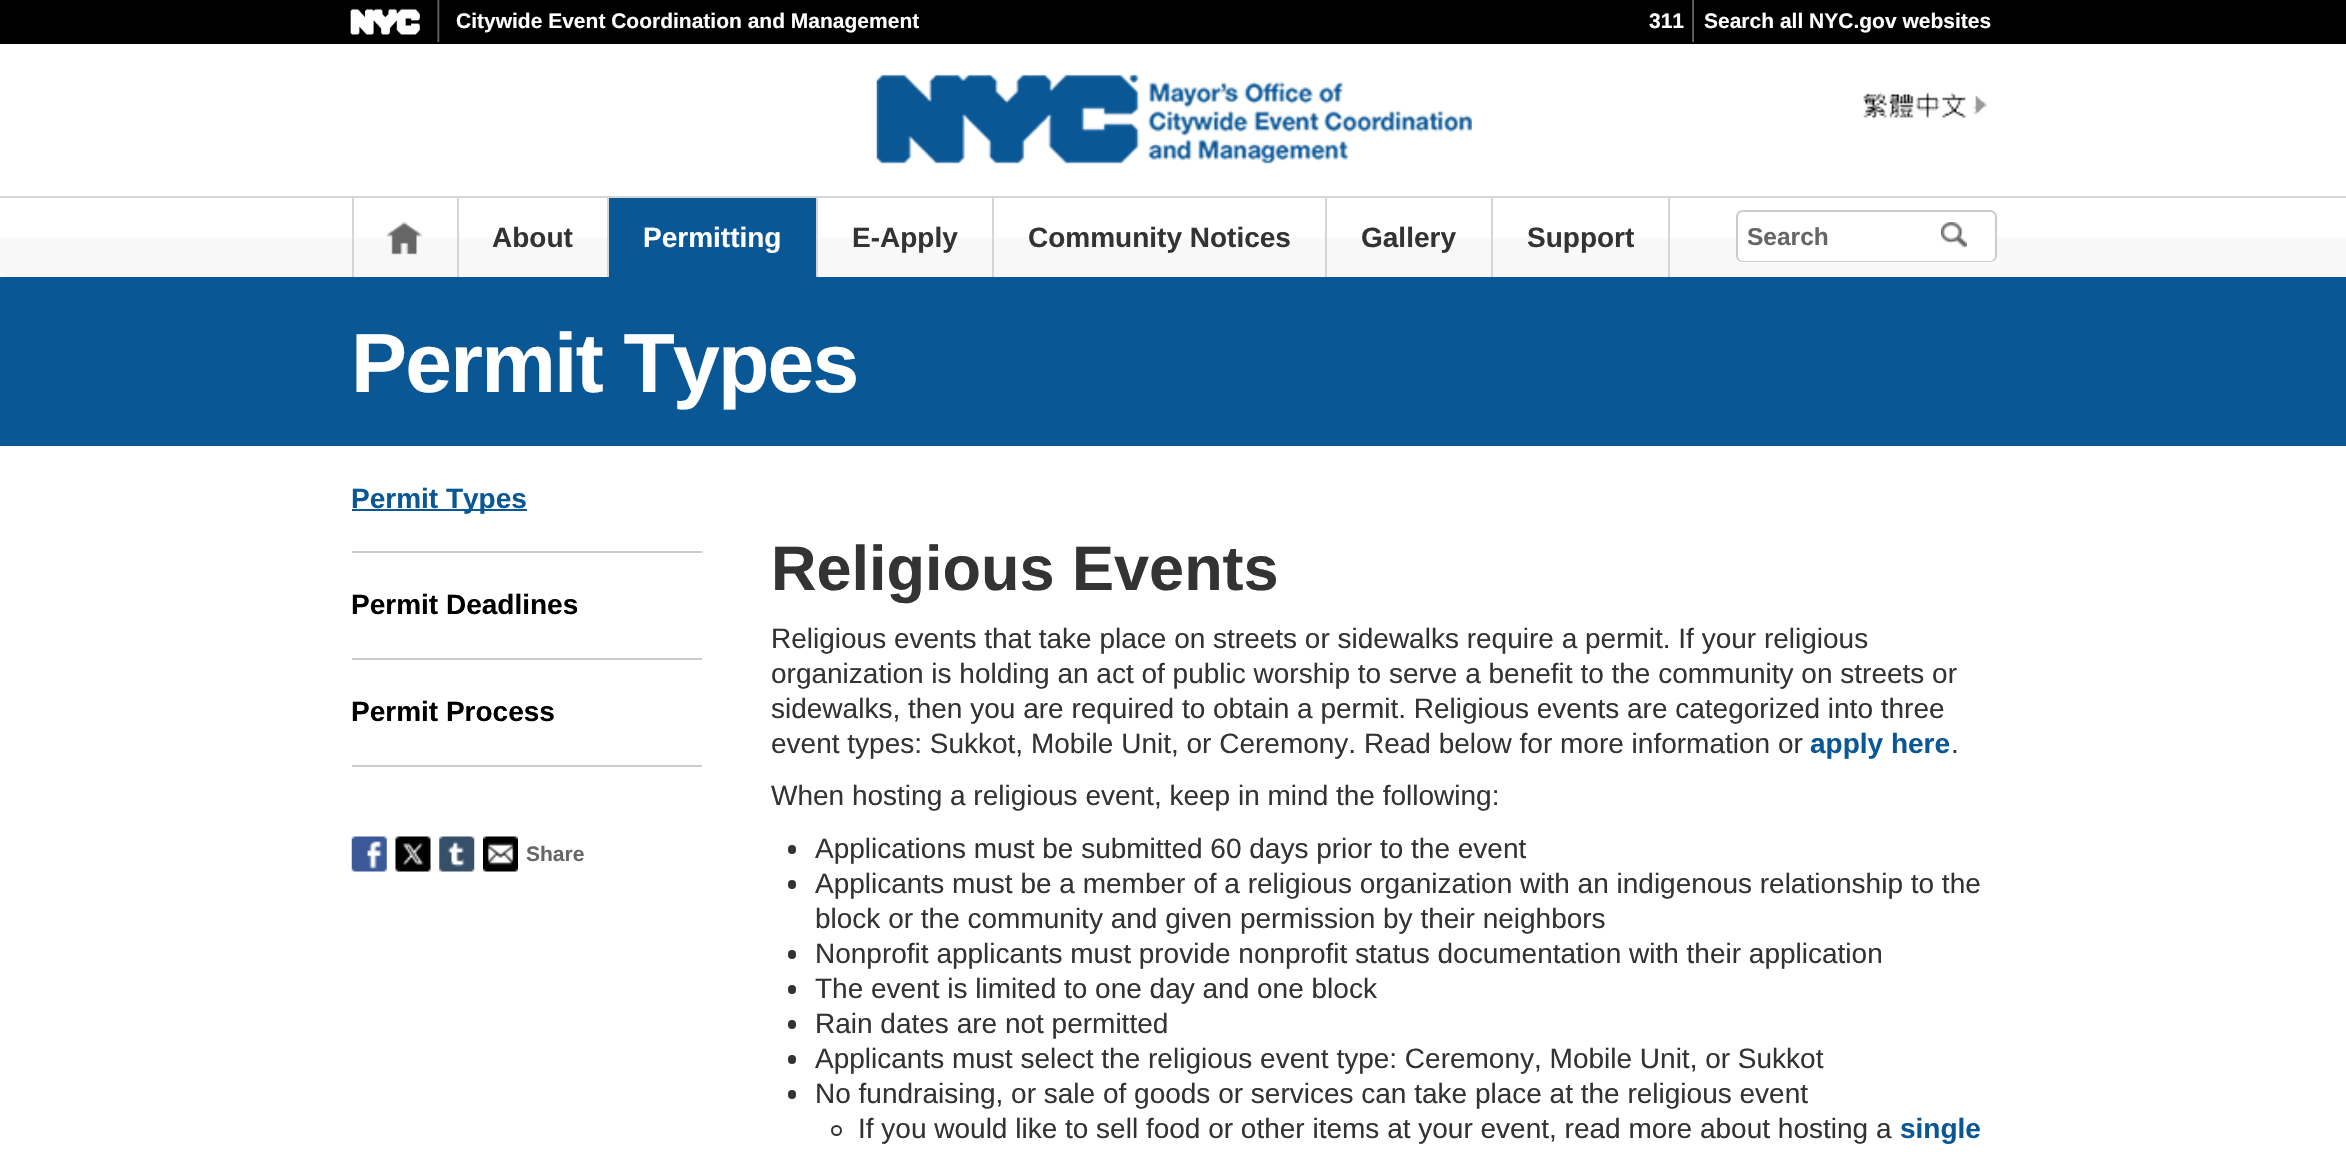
#include "include/core/SkBlurTypes.h"
#include "include/core/SkCanvas.h"
#include "include/core/SkData.h"
#include "include/core/SkFont.h"
#include "include/core/SkFontMgr.h"
#include "include/core/SkImage.h"
#include "include/core/SkMaskFilter.h"
#include "include/core/SkPaint.h"
#include "include/core/SkPathBuilder.h"
#include "include/core/SkTextBlob.h"
#include "include/effects/SkDashPathEffect.h"
#include "include/effects/SkGradientShader.h"
#include "include/utils/SkParsePath.h"

extern sk_sp<SkFontMgr> fontMgr;

static SkFont font(const char* family, int weight, float size, bool italic = false) {
    SkFontStyle style(weight, SkFontStyle::kNormal_Width,
        italic ? SkFontStyle::kItalic_Slant : SkFontStyle::kUpright_Slant);
    SkFont result(fontMgr->matchFamilyStyle(family, style), size);
    result.setSubpixel(true);
    return result;
}

static void drawLabel(SkCanvas* canvas, const char* s, float x, float y, const SkFont& font, SkColor color) {
    SkPaint ink(SkColor4f::FromColor(color));
    ink.setAntiAlias(true);
    canvas->drawString(s, x, y, font, ink);
}

static void drawTracked(SkCanvas* canvas, const char* s, float x, float y, const SkFont& font, const SkPaint& ink, float letter, float word) {
    std::vector<SkGlyphID> glyphs(font.countText(s, strlen(s), SkTextEncoding::kUTF8));
    std::vector<float> xs(glyphs.size());
    font.textToGlyphs(s, strlen(s), SkTextEncoding::kUTF8, glyphs);
    font.getXPos(glyphs, xs, x);
    float extra = 0;
    for (size_t i = 0; i < glyphs.size(); i++) {
        xs[i] += extra;
        extra += letter + word * (glyphs[i] == font.unicharToGlyph(' '));
    }
    canvas->drawTextBlob(SkTextBlob::MakeFromPosHGlyphs(glyphs, xs, y, font), 0, 0, ink);
}

static void fillRect(SkCanvas* canvas, float x, float y, float w, float h, SkColor color) {
    SkPaint ink(SkColor4f::FromColor(color));
    ink.setAntiAlias(true);
    canvas->drawRect(SkRect::MakeXYWH(x, y, w, h), ink);
}

static void fillRRect(SkCanvas* canvas, float x, float y, float w, float h, float radius, SkColor color) {
    SkPaint ink(SkColor4f::FromColor(color));
    ink.setAntiAlias(true);
    canvas->drawRoundRect(SkRect::MakeXYWH(x, y, w, h), radius, radius, ink);
}

static void drawPhoto(SkCanvas* canvas, const char* path, float x, float y, float w, float h) {
    auto image = SkImages::DeferredFromEncodedData(SkData::MakeFromFileName(path));
    canvas->drawImageRect(image, SkRect::MakeXYWH(x, y, w, h), SkSamplingOptions());
}

static SkPath parsePath(const char* data, bool evenOdd = false) {
    SkPath result = *SkParsePath::FromSVGString(data);
    if (evenOdd) result.setFillType(SkPathFillType::kEvenOdd);
    return result;
}

void draw(SkCanvas* canvas) {
    SkPaint paint;
    paint.setAntiAlias(true);
    canvas->clear(0xFFFFFFFF);
    drawPhoto(canvas, "assets/img1.png", 0, 237, 2346, 40);
    fillRect(canvas, 0, 0, 2346, 44, 0xFF000000);
    drawPhoto(canvas, "assets/img2.png", 350, 8, 70, 27);
    drawPhoto(canvas, "assets/img3.png", 437, 0, 3, 42);
    SkFont font1 = font("Liberation Sans", 700, 21);
    drawLabel(canvas, "Citywide Event Coordination and Management", 456, 28, font1, 0xFFFFFFFF);
    drawLabel(canvas, "311", 1649, 28, font1, 0xFFFFFFFF);
    drawPhoto(canvas, "assets/img4.png", 1692, 0, 2, 42);
    drawLabel(canvas, "Search all NYC.gov websites", 1704, 28, font1, 0xFFFFFFFF);
    fillRect(canvas, 0, 196, 2346, 2, 0xFFD5D5D5);
    drawPhoto(canvas, "assets/img5.png", 876, 74, 596, 90);
    drawPhoto(canvas, "assets/img6.png", 1863, 92, 124, 26);
    fillRect(canvas, 457, 198, 2, 79, 0xFFD5D5D5);
    fillRect(canvas, 352, 198, 2, 79, 0xFFD5D5D5);
    drawPhoto(canvas, "assets/img7.png", 386, 222, 36, 33);
    fillRect(canvas, 607, 198, 2, 79, 0xFFD5D5D5);
    SkFont font2 = font("Liberation Sans", 700, 28);
    drawLabel(canvas, "About", 492, 247, font2, 0xFF333333);
    fillRect(canvas, 609, 198, 207, 79, 0xFF0A5796);
    fillRect(canvas, 816, 198, 2, 79, 0xFFD5D5D5);
    drawLabel(canvas, "Permitting", 643, 247, font2, 0xFFFFFFFF);
    fillRect(canvas, 992, 198, 2, 79, 0xFFD5D5D5);
    drawLabel(canvas, "E-Apply", 852, 247, font2, 0xFF333333);
    fillRect(canvas, 1325, 198, 2, 79, 0xFFD5D5D5);
    drawLabel(canvas, "Community Notices", 1028, 247, font2, 0xFF333333);
    fillRect(canvas, 1491, 198, 2, 79, 0xFFD5D5D5);
    drawLabel(canvas, "Gallery", 1361, 247, font2, 0xFF333333);
    fillRect(canvas, 1668, 198, 2, 79, 0xFFD5D5D5);
    drawLabel(canvas, "Support", 1527, 247, font2, 0xFF333333);
    paint.setColor(0xFFFFFFFF);
    canvas->drawPath(parsePath("M1743 210H1941V263H1743C1739 263 1736 260 1736 256V217C1736 213 1739 210 1743 210Z"), paint);
    canvas->save();
    canvas->clipRect(SkRect::MakeXYWH(1722, 210, 219, 53));
    paint.setColor(0xFFCCCCCC);
    canvas->drawPath(parsePath("M1743 210H1950V262H1743C1739 262 1736 259 1736 256V217C1736 213 1739 210 1743 210ZM1743 212H1950V261H1743C1740 261 1738 258 1738 256V217C1738 214 1740 212 1743 212Z", true), paint);
    canvas->restore();
    SkFont font3 = font("Liberation Sans", 700, 24.5f);
    drawLabel(canvas, "Search", 1747, 245, font3, 0xFF666666);
    paint.setColor(0xFFFFFFFF);
    canvas->drawPath(parsePath("M1941 210H1990C1994 210 1997 213 1997 217V256C1997 260 1994 263 1990 263H1941Z"), paint);
    drawPhoto(canvas, "assets/img8.png", 1941, 222, 26, 26);
    paint.setColor(0xFFCCCCCC);
    canvas->drawPath(parsePath("M1941 210H1990C1994 210 1997 213 1997 217V256C1997 259 1994 262 1990 262H1941ZM1941 212H1990C1993 212 1995 214 1995 217V256C1995 258 1993 261 1990 261H1941Z", true), paint);
    fillRect(canvas, 0, 277, 2346, 169, 0xFF0A5796);
    SkFont font4 = font("Liberation Sans", 700, 84);
    paint.setColor(0xFFFFFFFF);
    drawTracked(canvas, "Permit Types", 351, 392, font4, paint, -1.75f, 0);
    fillRect(canvas, 352, 551, 350, 2, 0xFFCCCCCC);
    fillRect(canvas, 352, 509, 175, 2, 0xFF0A5796);
    drawLabel(canvas, "Permit Types", 351, 508, font2, 0xFF0A5796);
    fillRect(canvas, 352, 658, 350, 2, 0xFFCCCCCC);
    drawLabel(canvas, "Permit Deadlines", 351, 614, font2, 0xFF000000);
    fillRect(canvas, 352, 765, 350, 2, 0xFFCCCCCC);
    drawLabel(canvas, "Permit Process", 351, 721, font2, 0xFF000000);
    drawPhoto(canvas, "assets/img9.png", 351, 836, 36, 36);
    drawPhoto(canvas, "assets/img10.png", 395, 836, 36, 36);
    drawPhoto(canvas, "assets/img11.png", 439, 836, 36, 36);
    drawPhoto(canvas, "assets/img12.png", 483, 836, 35, 36);
    drawLabel(canvas, "Share", 526, 861, font1, 0xFF666666);
    SkFont font5 = font("Liberation Sans", 700, 63);
    drawLabel(canvas, "Religious Events", 771, 590, font5, 0xFF333333);
    SkFont font6 = font("Liberation Sans", 400, 28);
    drawLabel(canvas, "Religious events that take place on streets or sidewalks require a permit. If your religious", 771, 648, font6, 0xFF333333);
    drawLabel(canvas, "organization is holding an act of public worship to serve a benefit to the community on streets or", 771, 683, font6, 0xFF333333);
    drawLabel(canvas, "sidewalks, then you are required to obtain a permit. Religious events are categorized into three", 771, 718, font6, 0xFF333333);
    drawLabel(canvas, "event types: Sukkot, Mobile Unit, or Ceremony. Read below for more information or", 771, 753, font6, 0xFF333333);
    drawLabel(canvas, "apply here", 1810, 753, font2, 0xFF0A5796);
    drawLabel(canvas, ".", 1951, 753, font6, 0xFF333333);
    drawLabel(canvas, "When hosting a religious event, keep in mind the following:", 771, 805, font6, 0xFF333333);
    fillRRect(canvas, 788, 845, 8, 9, 4, 0xFF333333);
    drawLabel(canvas, "Applications must be submitted 60 days prior to the event", 815, 858, font6, 0xFF333333);
    fillRRect(canvas, 788, 880, 8, 9, 4, 0xFF333333);
    drawLabel(canvas, "Applicants must be a member of a religious organization with an indigenous relationship to the", 815, 893, font6, 0xFF333333);
    drawLabel(canvas, "block or the community and given permission by their neighbors", 815, 928, font6, 0xFF333333);
    fillRRect(canvas, 788, 950, 8, 9, 4, 0xFF333333);
    drawLabel(canvas, "Nonprofit applicants must provide nonprofit status documentation with their application", 815, 963, font6, 0xFF333333);
    fillRRect(canvas, 788, 985, 8, 9, 4, 0xFF333333);
    drawLabel(canvas, "The event is limited to one day and one block", 815, 998, font6, 0xFF333333);
    fillRRect(canvas, 788, 1020, 8, 9, 4, 0xFF333333);
    drawLabel(canvas, "Rain dates are not permitted", 815, 1033, font6, 0xFF333333);
    fillRRect(canvas, 788, 1055, 8, 9, 4, 0xFF333333);
    drawLabel(canvas, "Applicants must select the religious event type: Ceremony, Mobile Unit, or Sukkot", 815, 1068, font6, 0xFF333333);
    fillRRect(canvas, 788, 1090, 8, 9, 4, 0xFF333333);
    drawLabel(canvas, "No fundraising, or sale of goods or services can take place at the religious event", 815, 1103, font6, 0xFF333333);
    paint.setStroke(true);
    paint.setStrokeWidth(2);
    paint.setColor(0xFF333333);
    canvas->drawCircle(836.5f, 1130.5f, 4.5f, paint);
    drawLabel(canvas, "If you would like to sell food or other items at your event, read more about hosting a", 858, 1138, font6, 0xFF333333);
    drawLabel(canvas, "single", 1900, 1138, font2, 0xFF0A5796);
}
